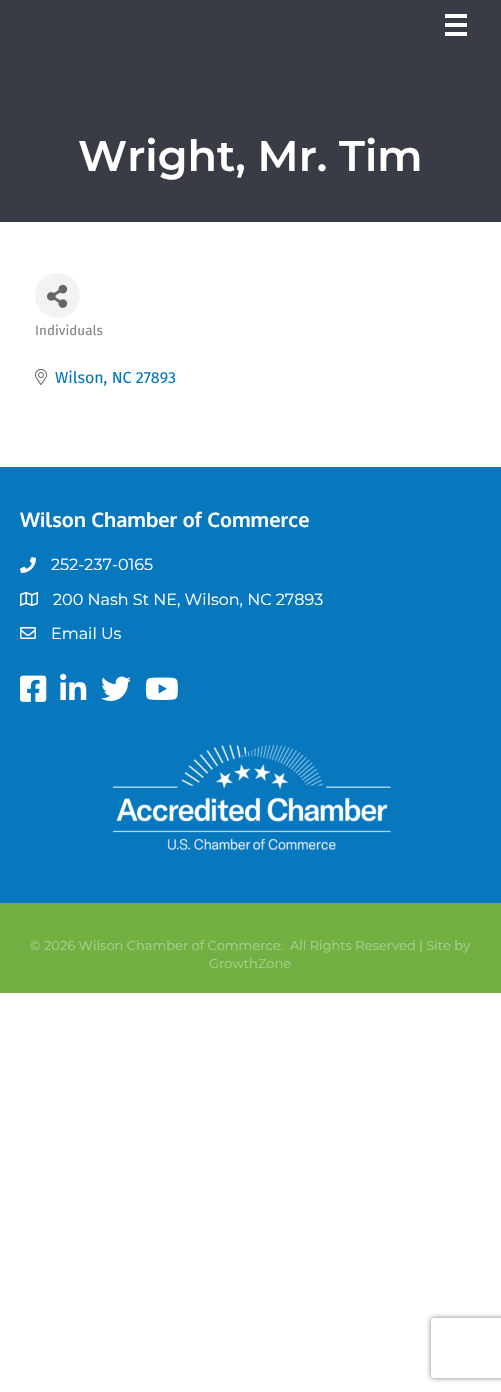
#include "include/core/SkBlurTypes.h"
#include "include/core/SkCanvas.h"
#include "include/core/SkData.h"
#include "include/core/SkFont.h"
#include "include/core/SkFontMgr.h"
#include "include/core/SkImage.h"
#include "include/core/SkMaskFilter.h"
#include "include/core/SkPaint.h"
#include "include/core/SkPathBuilder.h"
#include "include/core/SkTextBlob.h"
#include "include/effects/SkDashPathEffect.h"
#include "include/effects/SkGradientShader.h"
#include "include/utils/SkParsePath.h"

extern sk_sp<SkFontMgr> fontMgr;

static SkFont font(const char* family, int weight, float size, bool italic = false) {
    SkFontStyle style(weight, SkFontStyle::kNormal_Width,
        italic ? SkFontStyle::kItalic_Slant : SkFontStyle::kUpright_Slant);
    SkFont result(fontMgr->matchFamilyStyle(family, style), size);
    result.setSubpixel(true);
    return result;
}

static void drawLabel(SkCanvas* canvas, const char* s, float x, float y, const SkFont& font, SkColor color) {
    SkPaint ink(SkColor4f::FromColor(color));
    ink.setAntiAlias(true);
    canvas->drawString(s, x, y, font, ink);
}

static void fillRect(SkCanvas* canvas, float x, float y, float w, float h, SkColor color) {
    SkPaint ink(SkColor4f::FromColor(color));
    ink.setAntiAlias(true);
    canvas->drawRect(SkRect::MakeXYWH(x, y, w, h), ink);
}

static void drawPhoto(SkCanvas* canvas, const char* path, float x, float y, float w, float h) {
    auto image = SkImages::DeferredFromEncodedData(SkData::MakeFromFileName(path));
    canvas->drawImageRect(image, SkRect::MakeXYWH(x, y, w, h), SkSamplingOptions());
}

static SkPath parsePath(const char* data, bool evenOdd = false) {
    SkPath result = *SkParsePath::FromSVGString(data);
    if (evenOdd) result.setFillType(SkPathFillType::kEvenOdd);
    return result;
}

void draw(SkCanvas* canvas) {
    SkPaint paint;
    paint.setAntiAlias(true);
    canvas->clear(0xFFFFFFFF);
    fillRect(canvas, 0, 0, 501, 222, 0xFF393B45);
    fillRect(canvas, 445, 14, 22, 4, 0xFFFFFFFF);
    fillRect(canvas, 445, 23, 22, 4, 0xFFFFFFFF);
    fillRect(canvas, 445, 32, 22, 4, 0xFFFFFFFF);
    SkFont font1 = font("Montserrat", 600, 43);
    drawLabel(canvas, "Wright, Mr. Tim", 78, 171, font1, 0xFFFFFFFF);
    paint.setColor(0xFFF3F3F3);
    canvas->drawCircle(57.5f, 295.5f, 22.5f, paint);
    drawPhoto(canvas, "assets/img1.png", 47, 284, 21, 24);
    SkFont font2 = font("Fira Sans", 400, 13.5f);
    drawLabel(canvas, "Individuals", 35, 335, font2, 0xFF858585);
    drawPhoto(canvas, "assets/img2.png", 35, 369, 12, 16);
    SkFont font3 = font("Fira Sans", 400, 16);
    drawLabel(canvas, "Wilson, NC 27893", 55, 383, font3, 0xFF0077C0);
    fillRect(canvas, 0, 467, 501, 436, 0xFF0878BE);
    SkFont font4 = font("Oxygen", 700, 20);
    drawLabel(canvas, "Wilson Chamber of Commerce", 20, 527, font4, 0xFFFFFFFF);
    drawPhoto(canvas, "assets/img3.png", 20, 557, 16, 16);
    SkFont font5 = font("Montserrat", 400, 16);
    drawLabel(canvas, "252-237-0165", 51, 570, font5, 0xFFFFFFFF);
    drawPhoto(canvas, "assets/img4.png", 20, 592, 18, 14);
    drawLabel(canvas, "200 Nash St NE, Wilson, NC 27893", 53, 605, font5, 0xFFFFFFFF);
    drawPhoto(canvas, "assets/img5.png", 20, 627, 16, 12);
    drawLabel(canvas, "Email Us", 51, 639, font5, 0xFFFFFFFF);
    drawPhoto(canvas, "assets/img6.png", 20, 675, 27, 27);
    drawPhoto(canvas, "assets/img7.png", 60, 673, 27, 27);
    drawPhoto(canvas, "assets/img8.png", 101, 676, 30, 25);
    drawPhoto(canvas, "assets/img9.png", 145, 677, 33, 23);
    drawPhoto(canvas, "assets/img10.png", 112, 744, 279, 106);
    fillRect(canvas, 0, 903, 501, 90, 0xFF72B043);
    SkFont font6 = font("Montserrat", 400, 13);
    drawLabel(canvas, "© 2026 Wilson Chamber of Commerce.", 30, 950, font6, 0xFFAAD08E);
    drawLabel(canvas, "All Rights Reserved | Site by", 290, 950, font6, 0xFFAAD08E);
    drawLabel(canvas, "GrowthZone", 209, 968, font6, 0xFFAAD08E);
    canvas->save();
    canvas->clipPath(parsePath("M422 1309H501V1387H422ZM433 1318H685C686 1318 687 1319 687 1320V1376C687 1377 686 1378 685 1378H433C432 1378 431 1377 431 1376V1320C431 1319 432 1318 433 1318Z", true), true);
    paint.setColor(0xFF808080);
    paint.setMaskFilter(SkMaskFilter::MakeBlur(kNormal_SkBlurStyle, 2.5f));
    canvas->drawRoundRect(SkRect::MakeXYWH(431, 1318, 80, 60), 2, 2, paint);
    paint.setMaskFilter(nullptr);
    canvas->restore();
}
